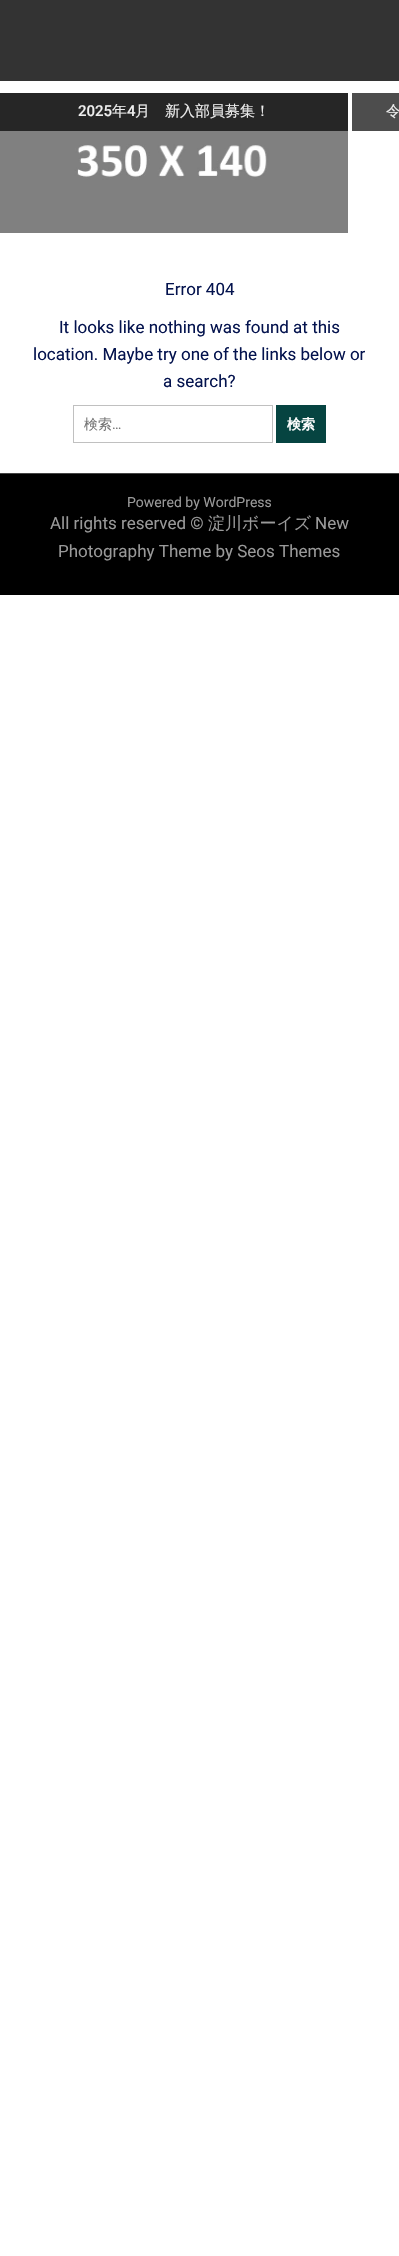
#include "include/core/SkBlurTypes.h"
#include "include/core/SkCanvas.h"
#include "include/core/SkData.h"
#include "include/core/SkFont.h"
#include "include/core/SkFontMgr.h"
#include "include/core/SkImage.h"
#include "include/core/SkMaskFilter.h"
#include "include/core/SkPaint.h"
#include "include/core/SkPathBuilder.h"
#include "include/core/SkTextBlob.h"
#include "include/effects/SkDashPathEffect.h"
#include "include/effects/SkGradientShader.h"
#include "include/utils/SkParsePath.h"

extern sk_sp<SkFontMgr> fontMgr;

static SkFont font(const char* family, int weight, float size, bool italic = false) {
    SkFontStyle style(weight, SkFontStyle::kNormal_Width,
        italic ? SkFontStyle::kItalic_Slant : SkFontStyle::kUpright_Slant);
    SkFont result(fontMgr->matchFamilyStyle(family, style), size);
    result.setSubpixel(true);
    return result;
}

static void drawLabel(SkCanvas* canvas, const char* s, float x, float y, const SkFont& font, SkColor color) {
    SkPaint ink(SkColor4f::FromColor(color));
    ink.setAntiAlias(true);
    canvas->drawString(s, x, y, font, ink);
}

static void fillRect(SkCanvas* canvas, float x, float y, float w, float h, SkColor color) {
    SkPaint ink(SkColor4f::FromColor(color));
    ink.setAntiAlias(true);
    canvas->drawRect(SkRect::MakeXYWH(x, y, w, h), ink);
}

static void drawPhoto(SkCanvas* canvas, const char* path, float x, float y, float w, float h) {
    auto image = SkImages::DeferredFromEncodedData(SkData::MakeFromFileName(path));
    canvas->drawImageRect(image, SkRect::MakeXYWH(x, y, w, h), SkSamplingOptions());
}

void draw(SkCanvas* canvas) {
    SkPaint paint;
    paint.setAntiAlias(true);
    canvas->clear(0xFFFFFFFF);
    fillRect(canvas, 0, 0, 399, 81, 0xFF333333);
    fillRect(canvas, 0, 93, 348, 38, 0xFF262626);
    SkFont font1 = font("Roboto", 500, 15);
    drawLabel(canvas, "2025", 78, 116, font1, 0xFFEEEEEE);
    SkFont font2 = font("WenQuanYi Zen Hei", 500, 15);
    drawLabel(canvas, "年", 112, 116, font2, 0xFFEEEEEE);
    drawLabel(canvas, "4", 127, 116, font1, 0xFFEEEEEE);
    drawLabel(canvas, "月　新入部員募集！", 135, 116, font2, 0xFFEEEEEE);
    drawPhoto(canvas, "assets/img1.png", 0, 131, 348, 102);
    fillRect(canvas, 352, 93, 47, 38, 0xFF4D4D4D);
    drawLabel(canvas, "令", 386, 116, font2, 0xFFEEEEEE);
    SkFont font3 = font("Roboto", 400, 17);
    drawLabel(canvas, "Error 404", 165, 295, font3, 0xFF04134E);
    drawLabel(canvas, "It looks like nothing was found at this", 59, 333, font3, 0xFF04134E);
    drawLabel(canvas, "location. Maybe try one of the links below or", 33, 360, font3, 0xFF04134E);
    drawLabel(canvas, "a search?", 163, 387, font3, 0xFF04134E);
    paint.setStroke(true);
    paint.setStrokeWidth(1);
    paint.setColor(0xFFC0C0C0);
    canvas->drawRect(SkRect::MakeXYWH(73.5f, 405.5f, 199, 37), paint);
    SkFont font4 = font("WenQuanYi Zen Hei", 500, 14);
    drawLabel(canvas, "検索", 84, 429, font4, 0xFF757575);
    SkFont font5 = font("Roboto", 400, 14);
    drawLabel(canvas, "…", 112, 429, font5, 0xFF757575);
    fillRect(canvas, 276, 405, 50, 38, 0xFF064441);
    SkFont font6 = font("WenQuanYi Zen Hei", 700, 14);
    drawLabel(canvas, "検索", 287, 429, font6, 0xFFFFFFFF);
    fillRect(canvas, 0, 473, 399, 1, 0xFF444444);
    fillRect(canvas, 0, 474, 399, 121, 0xFF000000);
    drawLabel(canvas, "Powered by WordPress", 127, 507, font5, 0xFF999999);
    drawLabel(canvas, "All rights reserved ©", 50, 529, font3, 0xFF999999);
    SkFont font7 = font("WenQuanYi Zen Hei", 500, 17);
    drawLabel(canvas, "淀川ボーイズ", 208, 529, font7, 0xFF999999);
    drawLabel(canvas, "New", 315, 529, font3, 0xFF999999);
    drawLabel(canvas, "Photography Theme by Seos Themes", 58, 557, font3, 0xFF999999);
}
